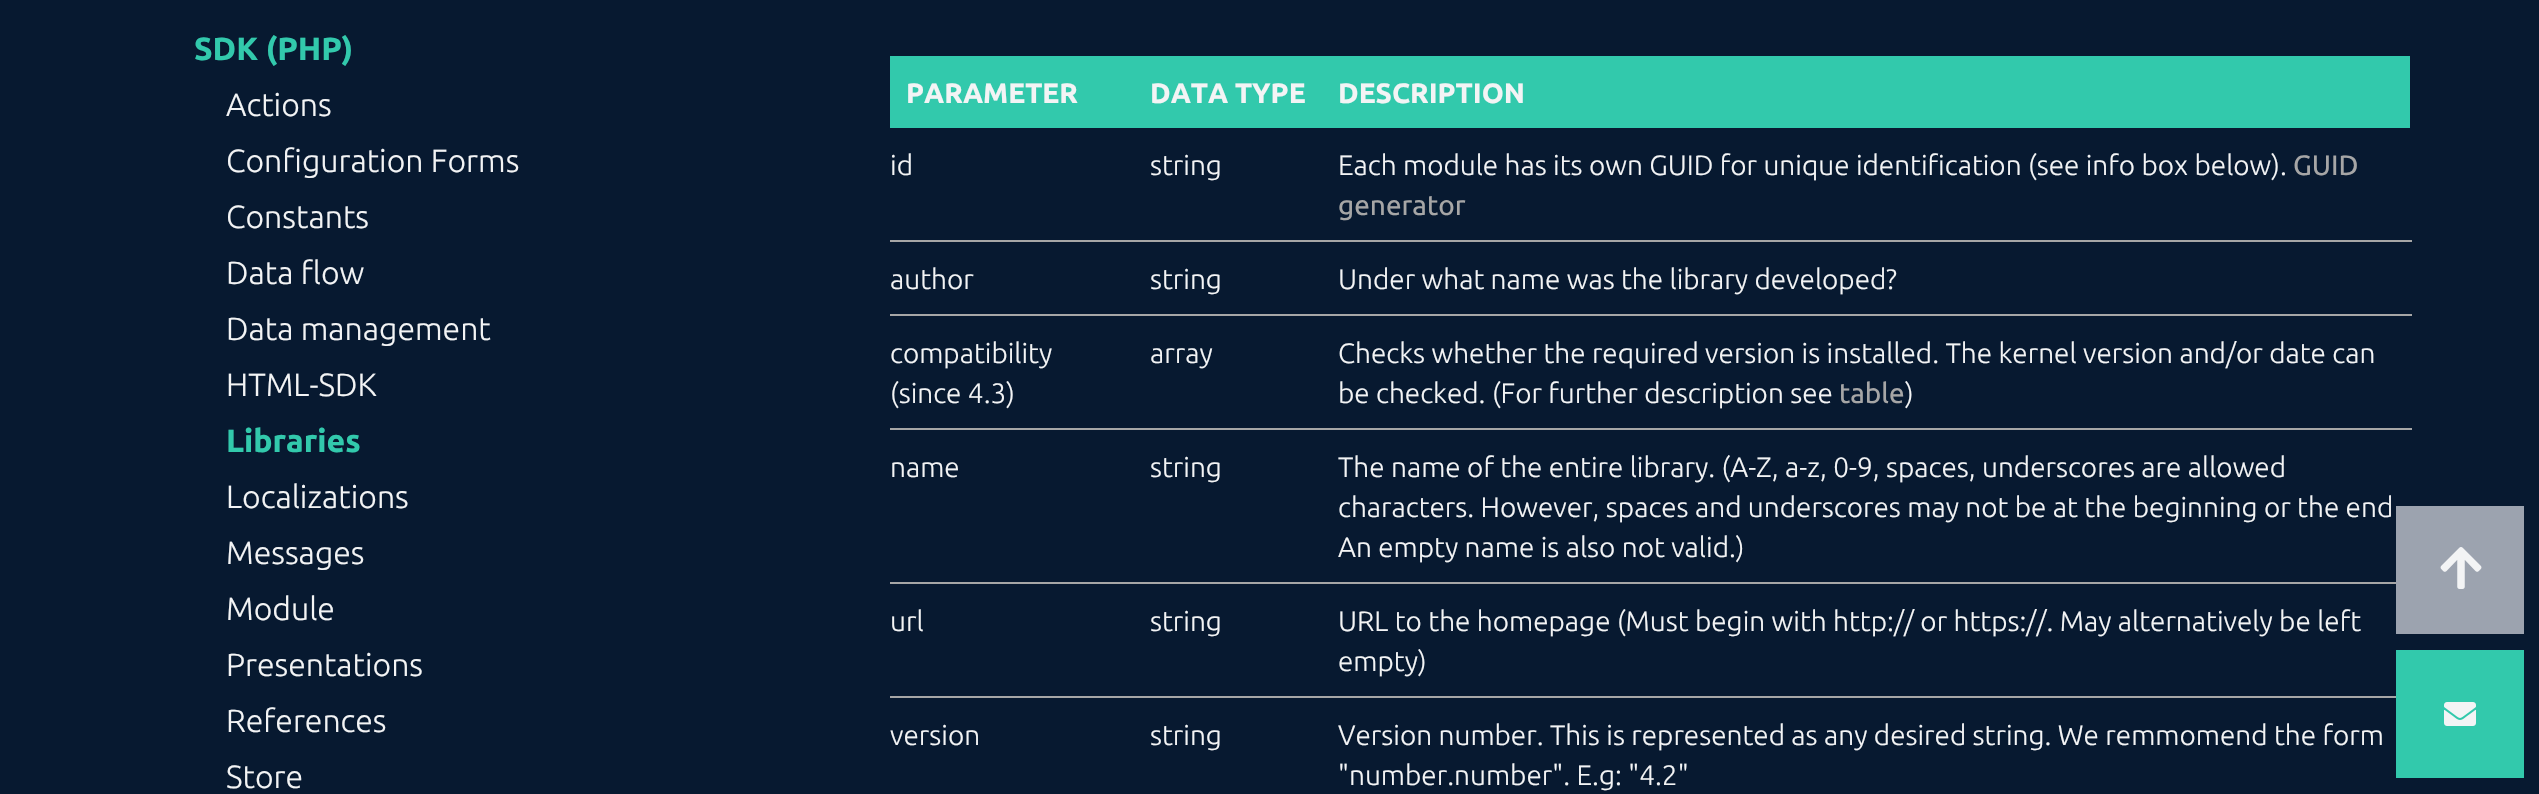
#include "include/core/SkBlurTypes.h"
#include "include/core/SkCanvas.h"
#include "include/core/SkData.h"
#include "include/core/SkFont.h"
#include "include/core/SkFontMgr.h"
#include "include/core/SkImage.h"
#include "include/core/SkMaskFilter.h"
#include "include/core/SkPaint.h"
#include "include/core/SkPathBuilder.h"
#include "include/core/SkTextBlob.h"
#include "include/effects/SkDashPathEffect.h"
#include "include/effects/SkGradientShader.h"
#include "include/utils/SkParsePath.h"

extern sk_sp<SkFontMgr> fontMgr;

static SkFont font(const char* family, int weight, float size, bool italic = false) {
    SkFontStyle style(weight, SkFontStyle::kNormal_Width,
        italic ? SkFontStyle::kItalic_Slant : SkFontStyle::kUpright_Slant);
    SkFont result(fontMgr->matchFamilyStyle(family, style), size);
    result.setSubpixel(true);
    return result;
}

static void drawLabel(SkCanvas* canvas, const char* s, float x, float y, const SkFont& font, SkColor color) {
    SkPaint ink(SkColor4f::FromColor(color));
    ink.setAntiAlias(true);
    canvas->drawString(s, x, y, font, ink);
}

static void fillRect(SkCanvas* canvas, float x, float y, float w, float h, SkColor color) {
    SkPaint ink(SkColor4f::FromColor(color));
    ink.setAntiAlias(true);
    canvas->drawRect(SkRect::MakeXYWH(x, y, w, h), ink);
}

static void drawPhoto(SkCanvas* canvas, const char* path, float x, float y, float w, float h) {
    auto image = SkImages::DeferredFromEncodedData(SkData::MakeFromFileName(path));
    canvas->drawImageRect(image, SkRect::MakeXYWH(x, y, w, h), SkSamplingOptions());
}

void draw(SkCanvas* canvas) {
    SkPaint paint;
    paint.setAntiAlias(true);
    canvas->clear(0xFF071930);
    SkFont font1 = font("Ubuntu", 700, 32);
    drawLabel(canvas, "SDK (PHP)", 194, 60, font1, 0xFF32C9AC);
    SkFont font2 = font("Ubuntu", 300, 32);
    drawLabel(canvas, "Actions", 226, 116, font2, 0xFFF3F4F5);
    drawLabel(canvas, "Configuration Forms", 226, 172, font2, 0xFFF3F4F5);
    drawLabel(canvas, "Constants", 226, 228, font2, 0xFFF3F4F5);
    drawLabel(canvas, "Data flow", 226, 284, font2, 0xFFF3F4F5);
    drawLabel(canvas, "Data management", 226, 340, font2, 0xFFF3F4F5);
    drawLabel(canvas, "HTML-SDK", 226, 396, font2, 0xFFF3F4F5);
    drawLabel(canvas, "Libraries", 226, 452, font1, 0xFF32C9AC);
    drawLabel(canvas, "Localizations", 226, 508, font2, 0xFFF3F4F5);
    drawLabel(canvas, "Messages", 226, 564, font2, 0xFFF3F4F5);
    drawLabel(canvas, "Module", 226, 620, font2, 0xFFF3F4F5);
    drawLabel(canvas, "Presentations", 226, 676, font2, 0xFFF3F4F5);
    drawLabel(canvas, "References", 226, 732, font2, 0xFFF3F4F5);
    drawLabel(canvas, "Store", 226, 788, font2, 0xFFF3F4F5);
    fillRect(canvas, 890, 56, 1520, 72, 0xFF32C9AC);
    SkFont font3 = font("Ubuntu", 700, 28);
    drawLabel(canvas, "PARAMETER", 906, 103, font3, 0xFFF3F4F5);
    drawLabel(canvas, "DATA TYPE", 1150, 103, font3, 0xFFF3F4F5);
    drawLabel(canvas, "DESCRIPTION", 1338, 103, font3, 0xFFF3F4F5);
    fillRect(canvas, 890, 240, 1522, 2, 0xFFA6A6A6);
    SkFont font4 = font("Ubuntu", 300, 28);
    drawLabel(canvas, "id", 890, 175, font4, 0xFFF3F4F5);
    drawLabel(canvas, "string", 1150, 175, font4, 0xFFF3F4F5);
    drawLabel(canvas, "Each module has its own GUID for unique identification (see info box below).", 1338, 175, font4, 0xFFF3F4F5);
    SkFont font5 = font("Ubuntu", 400, 28);
    drawLabel(canvas, "GUID", 2293, 175, font5, 0xFFA6A6A6);
    drawLabel(canvas, "generator", 1338, 215, font5, 0xFFA6A6A6);
    fillRect(canvas, 890, 314, 1522, 2, 0xFFA6A6A6);
    drawLabel(canvas, "author", 890, 289, font4, 0xFFF3F4F5);
    drawLabel(canvas, "string", 1150, 289, font4, 0xFFF3F4F5);
    drawLabel(canvas, "Under what name was the library developed?", 1338, 289, font4, 0xFFF3F4F5);
    fillRect(canvas, 890, 428, 1522, 2, 0xFFA6A6A6);
    drawLabel(canvas, "compatibility", 890, 363, font4, 0xFFF3F4F5);
    drawLabel(canvas, "(since 4.3)", 890, 403, font4, 0xFFF3F4F5);
    drawLabel(canvas, "array", 1150, 363, font4, 0xFFF3F4F5);
    drawLabel(canvas, "Checks whether the required version is installed. The kernel version and/or date can", 1338, 363, font4, 0xFFF3F4F5);
    drawLabel(canvas, "be checked. (For further description see", 1338, 403, font4, 0xFFF3F4F5);
    drawLabel(canvas, "table", 1839, 403, font5, 0xFFA6A6A6);
    drawLabel(canvas, ")", 1905, 403, font4, 0xFFF3F4F5);
    fillRect(canvas, 890, 582, 1506, 2, 0xFFA6A6A6);
    drawLabel(canvas, "name", 890, 477, font4, 0xFFF3F4F5);
    drawLabel(canvas, "string", 1150, 477, font4, 0xFFF3F4F5);
    drawLabel(canvas, "The name of the entire library. (A-Z, a-z, 0-9, spaces, underscores are allowed", 1338, 477, font4, 0xFFF3F4F5);
    drawLabel(canvas, "characters. However, spaces and underscores may not be at the beginning or the end", 1338, 517, font4, 0xFFF3F4F5);
    drawLabel(canvas, "An empty name is also not valid.)", 1338, 557, font4, 0xFFF3F4F5);
    fillRect(canvas, 890, 696, 1506, 2, 0xFFA6A6A6);
    drawLabel(canvas, "url", 890, 631, font4, 0xFFF3F4F5);
    drawLabel(canvas, "string", 1150, 631, font4, 0xFFF3F4F5);
    drawLabel(canvas, "URL to the homepage (Must begin with http:// or https://. May alternatively be left", 1338, 631, font4, 0xFFF3F4F5);
    drawLabel(canvas, "empty)", 1338, 671, font4, 0xFFF3F4F5);
    drawLabel(canvas, "version", 890, 745, font4, 0xFFF3F4F5);
    drawLabel(canvas, "string", 1150, 745, font4, 0xFFF3F4F5);
    drawLabel(canvas, "Version number. This is represented as any desired string. We remmomend the form", 1338, 745, font4, 0xFFF3F4F5);
    drawLabel(canvas, "\"number.number\". E.g: \"4.2\"", 1338, 785, font4, 0xFFF3F4F5);
    fillRect(canvas, 2396, 506, 128, 128, 0xFF9CA3AF);
    drawPhoto(canvas, "assets/img1.png", 2440, 547, 42, 42);
    fillRect(canvas, 2396, 650, 128, 128, 0xFF32C9AC);
    drawPhoto(canvas, "assets/img2.png", 2444, 702, 32, 24);
}
